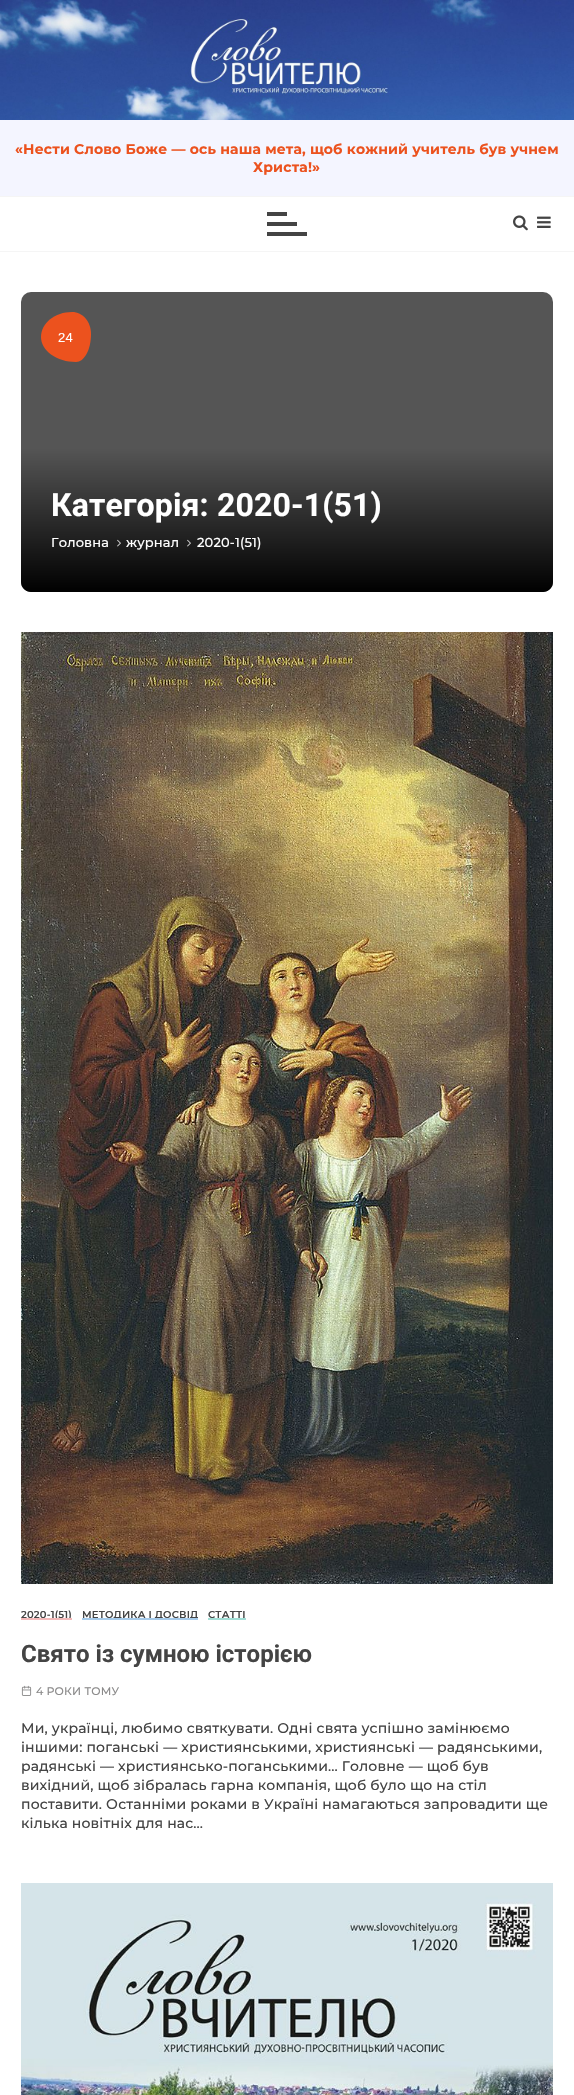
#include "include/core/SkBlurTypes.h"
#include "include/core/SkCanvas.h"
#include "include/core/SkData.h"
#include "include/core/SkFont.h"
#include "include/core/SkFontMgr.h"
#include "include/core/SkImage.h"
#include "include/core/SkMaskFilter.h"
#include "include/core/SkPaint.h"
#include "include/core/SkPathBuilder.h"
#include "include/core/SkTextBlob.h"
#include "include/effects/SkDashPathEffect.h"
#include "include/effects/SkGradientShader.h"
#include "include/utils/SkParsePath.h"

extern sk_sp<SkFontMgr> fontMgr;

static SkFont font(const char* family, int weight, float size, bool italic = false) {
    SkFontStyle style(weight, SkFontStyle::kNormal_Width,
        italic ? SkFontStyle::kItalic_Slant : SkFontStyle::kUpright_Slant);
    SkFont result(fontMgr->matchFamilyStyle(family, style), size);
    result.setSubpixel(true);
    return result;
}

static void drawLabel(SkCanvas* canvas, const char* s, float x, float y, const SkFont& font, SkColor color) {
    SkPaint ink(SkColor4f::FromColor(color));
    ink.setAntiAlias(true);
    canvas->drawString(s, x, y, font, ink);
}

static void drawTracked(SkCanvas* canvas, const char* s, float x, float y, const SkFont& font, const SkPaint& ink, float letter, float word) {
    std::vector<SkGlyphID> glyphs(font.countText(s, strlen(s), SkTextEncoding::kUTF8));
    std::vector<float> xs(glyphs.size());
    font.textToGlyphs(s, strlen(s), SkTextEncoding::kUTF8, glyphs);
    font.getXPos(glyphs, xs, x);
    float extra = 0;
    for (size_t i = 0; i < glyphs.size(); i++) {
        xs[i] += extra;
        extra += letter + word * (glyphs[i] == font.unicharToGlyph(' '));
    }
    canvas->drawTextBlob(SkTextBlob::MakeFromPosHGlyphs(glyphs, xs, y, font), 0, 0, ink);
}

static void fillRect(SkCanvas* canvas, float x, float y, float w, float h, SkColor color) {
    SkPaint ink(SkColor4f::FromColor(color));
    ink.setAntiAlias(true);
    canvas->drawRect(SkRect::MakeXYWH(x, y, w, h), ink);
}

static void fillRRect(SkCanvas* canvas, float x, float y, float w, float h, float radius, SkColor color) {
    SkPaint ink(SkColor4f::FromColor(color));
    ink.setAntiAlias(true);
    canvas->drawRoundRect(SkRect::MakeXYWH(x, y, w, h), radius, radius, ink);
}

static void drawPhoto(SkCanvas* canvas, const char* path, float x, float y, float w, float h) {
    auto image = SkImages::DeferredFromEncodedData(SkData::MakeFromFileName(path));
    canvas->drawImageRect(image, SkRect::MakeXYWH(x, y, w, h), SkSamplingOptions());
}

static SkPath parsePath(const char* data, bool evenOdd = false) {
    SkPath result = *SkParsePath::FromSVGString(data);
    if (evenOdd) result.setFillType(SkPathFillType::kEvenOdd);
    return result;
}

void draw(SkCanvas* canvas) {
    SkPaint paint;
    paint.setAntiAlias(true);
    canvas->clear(0xFFFFFFFF);
    fillRect(canvas, 0, 120, 574, 76, 0xFFF4F5FF);
    drawPhoto(canvas, "assets/img1.png", 0, 0, 574, 120);
    SkFont font1 = font("Montserrat", 700, 14);
    paint.setColor(0xFFEC521E);
    drawTracked(canvas, "«Нести Слово Боже — ось наша мета, щоб кожний учитель був учнем", 15, 154, font1, paint, 0.15f, 0);
    drawTracked(canvas, "Христа!»", 253, 172, font1, paint, 0.15f, 0);
    fillRect(canvas, 0, 196, 574, 1, 0xFFF5F5F5);
    fillRect(canvas, 0, 251, 574, 1, 0xFFF5F5F5);
    fillRect(canvas, 267, 212, 20, 4, 0xFF444444);
    fillRect(canvas, 267, 222, 30, 4, 0xFF444444);
    fillRect(canvas, 267, 232, 40, 4, 0xFF444444);
    drawPhoto(canvas, "assets/img2.png", 513, 215, 15, 16);
    drawPhoto(canvas, "assets/img3.png", 537, 216, 14, 12);
    fillRRect(canvas, 21, 292, 532, 300, 10, 0xFF555555);
    canvas->drawPath(parsePath("M72 312C83 312 91 322 91 334C91 350 84 362 76 362C57 362 41 351 41 337C41 323 55 312 72 312Z"), paint);
    SkFont font2 = font("Liberation Sans", 400, 13);
    paint.setColor(0xFFFFFFFF);
    drawTracked(canvas, "24", 58, 342, font2, paint, 0.15f, 0);
    {
        const SkColor colors[] = {0x00000000, 0x66000000, 0xFF000000};
        const float stops[] = {0, 0.4f, 1};
        const SkPoint ends[] = {{287, 448}, {287, 592}};
        paint.setShader(SkGradientShader::MakeLinear(ends, colors, stops, 3, SkTileMode::kClamp));
        paint.setAlpha(255);
    }
    canvas->drawPath(parsePath("M21 448H553V582C553 587.5 548.5 592 543 592H31C25.5 592 21 587.5 21 582Z"), paint);
    SkFont font3 = font("Roboto", 700, 32);
    paint.setShader(nullptr);
    paint.setColor(0xFFFFFFFF);
    drawTracked(canvas, "Категорія: 2020-1(51)", 51, 516, font3, paint, 0.15f, 0);
    SkFont font4 = font("Montserrat", 500, 13);
    drawTracked(canvas, "Головна", 51, 547, font4, paint, 0.15f, 0);
    drawPhoto(canvas, "assets/img4.png", 117, 539, 4, 8);
    drawTracked(canvas, "журнал", 126, 547, font4, paint, 0.15f, 0);
    drawPhoto(canvas, "assets/img4.png", 187, 539, 4, 8);
    drawTracked(canvas, "2020-1(51)", 197, 547, font4, paint, 0.15f, 0);
    drawPhoto(canvas, "assets/img5.png", 21, 632, 532, 952);
    SkFont font5 = font("Montserrat", 600, 10);
    paint.setColor(0xFF444444);
    drawTracked(canvas, "2020-1(51)", 21, 1618, font5, paint, 0.15f, 0);
    fillRect(canvas, 21, 1618, 51, 2, 0xFFF3B9B9);
    drawTracked(canvas, "МЕТОДИКА І ДОСВІД", 82, 1618, font5, paint, 0.15f, 0);
    fillRect(canvas, 82, 1618, 116, 2, 0xFFA5CAEA);
    drawTracked(canvas, "СТАТТІ", 208, 1618, font5, paint, 0.15f, 0);
    fillRect(canvas, 208, 1618, 38, 2, 0xFFA2DED6);
    SkFont font6 = font("Roboto", 700, 24);
    drawLabel(canvas, "Свято із сумною історією", 21, 1662, font6, 0xFF444444);
    drawPhoto(canvas, "assets/img6.png", 21, 1685, 11, 11);
    SkFont font7 = font("Montserrat", 500, 11);
    paint.setColor(0xFF8C8B8B);
    drawTracked(canvas, "4 РОКИ ТОМУ", 36, 1695, font7, paint, 0.15f, 0);
    SkFont font8 = font("Montserrat", 500, 14);
    paint.setColor(0xFF444444);
    drawTracked(canvas, "Ми, українці, любимо святкувати. Одні свята успішно замінюємо", 21, 1733, font8, paint, 0.15f, 0);
    drawTracked(canvas, "іншими: поганські — християнськими, християнські — радянськими,", 21, 1752, font8, paint, 0.15f, 0);
    drawTracked(canvas, "радянські — християнсько-поганськими… Головне — щоб був", 21, 1771, font8, paint, 0.15f, 0);
    drawTracked(canvas, "вихідний, щоб зібралась гарна компанія, щоб було що на стіл", 21, 1790, font8, paint, 0.15f, 0);
    drawTracked(canvas, "поставити. Останніми роками в Україні намагаються запровадити ще", 21, 1809, font8, paint, 0.15f, 0);
    drawTracked(canvas, "кілька новітніх для нас…", 21, 1828, font8, paint, 0.15f, 0);
    drawPhoto(canvas, "assets/img7.png", 21, 1883, 532, 212);
}
